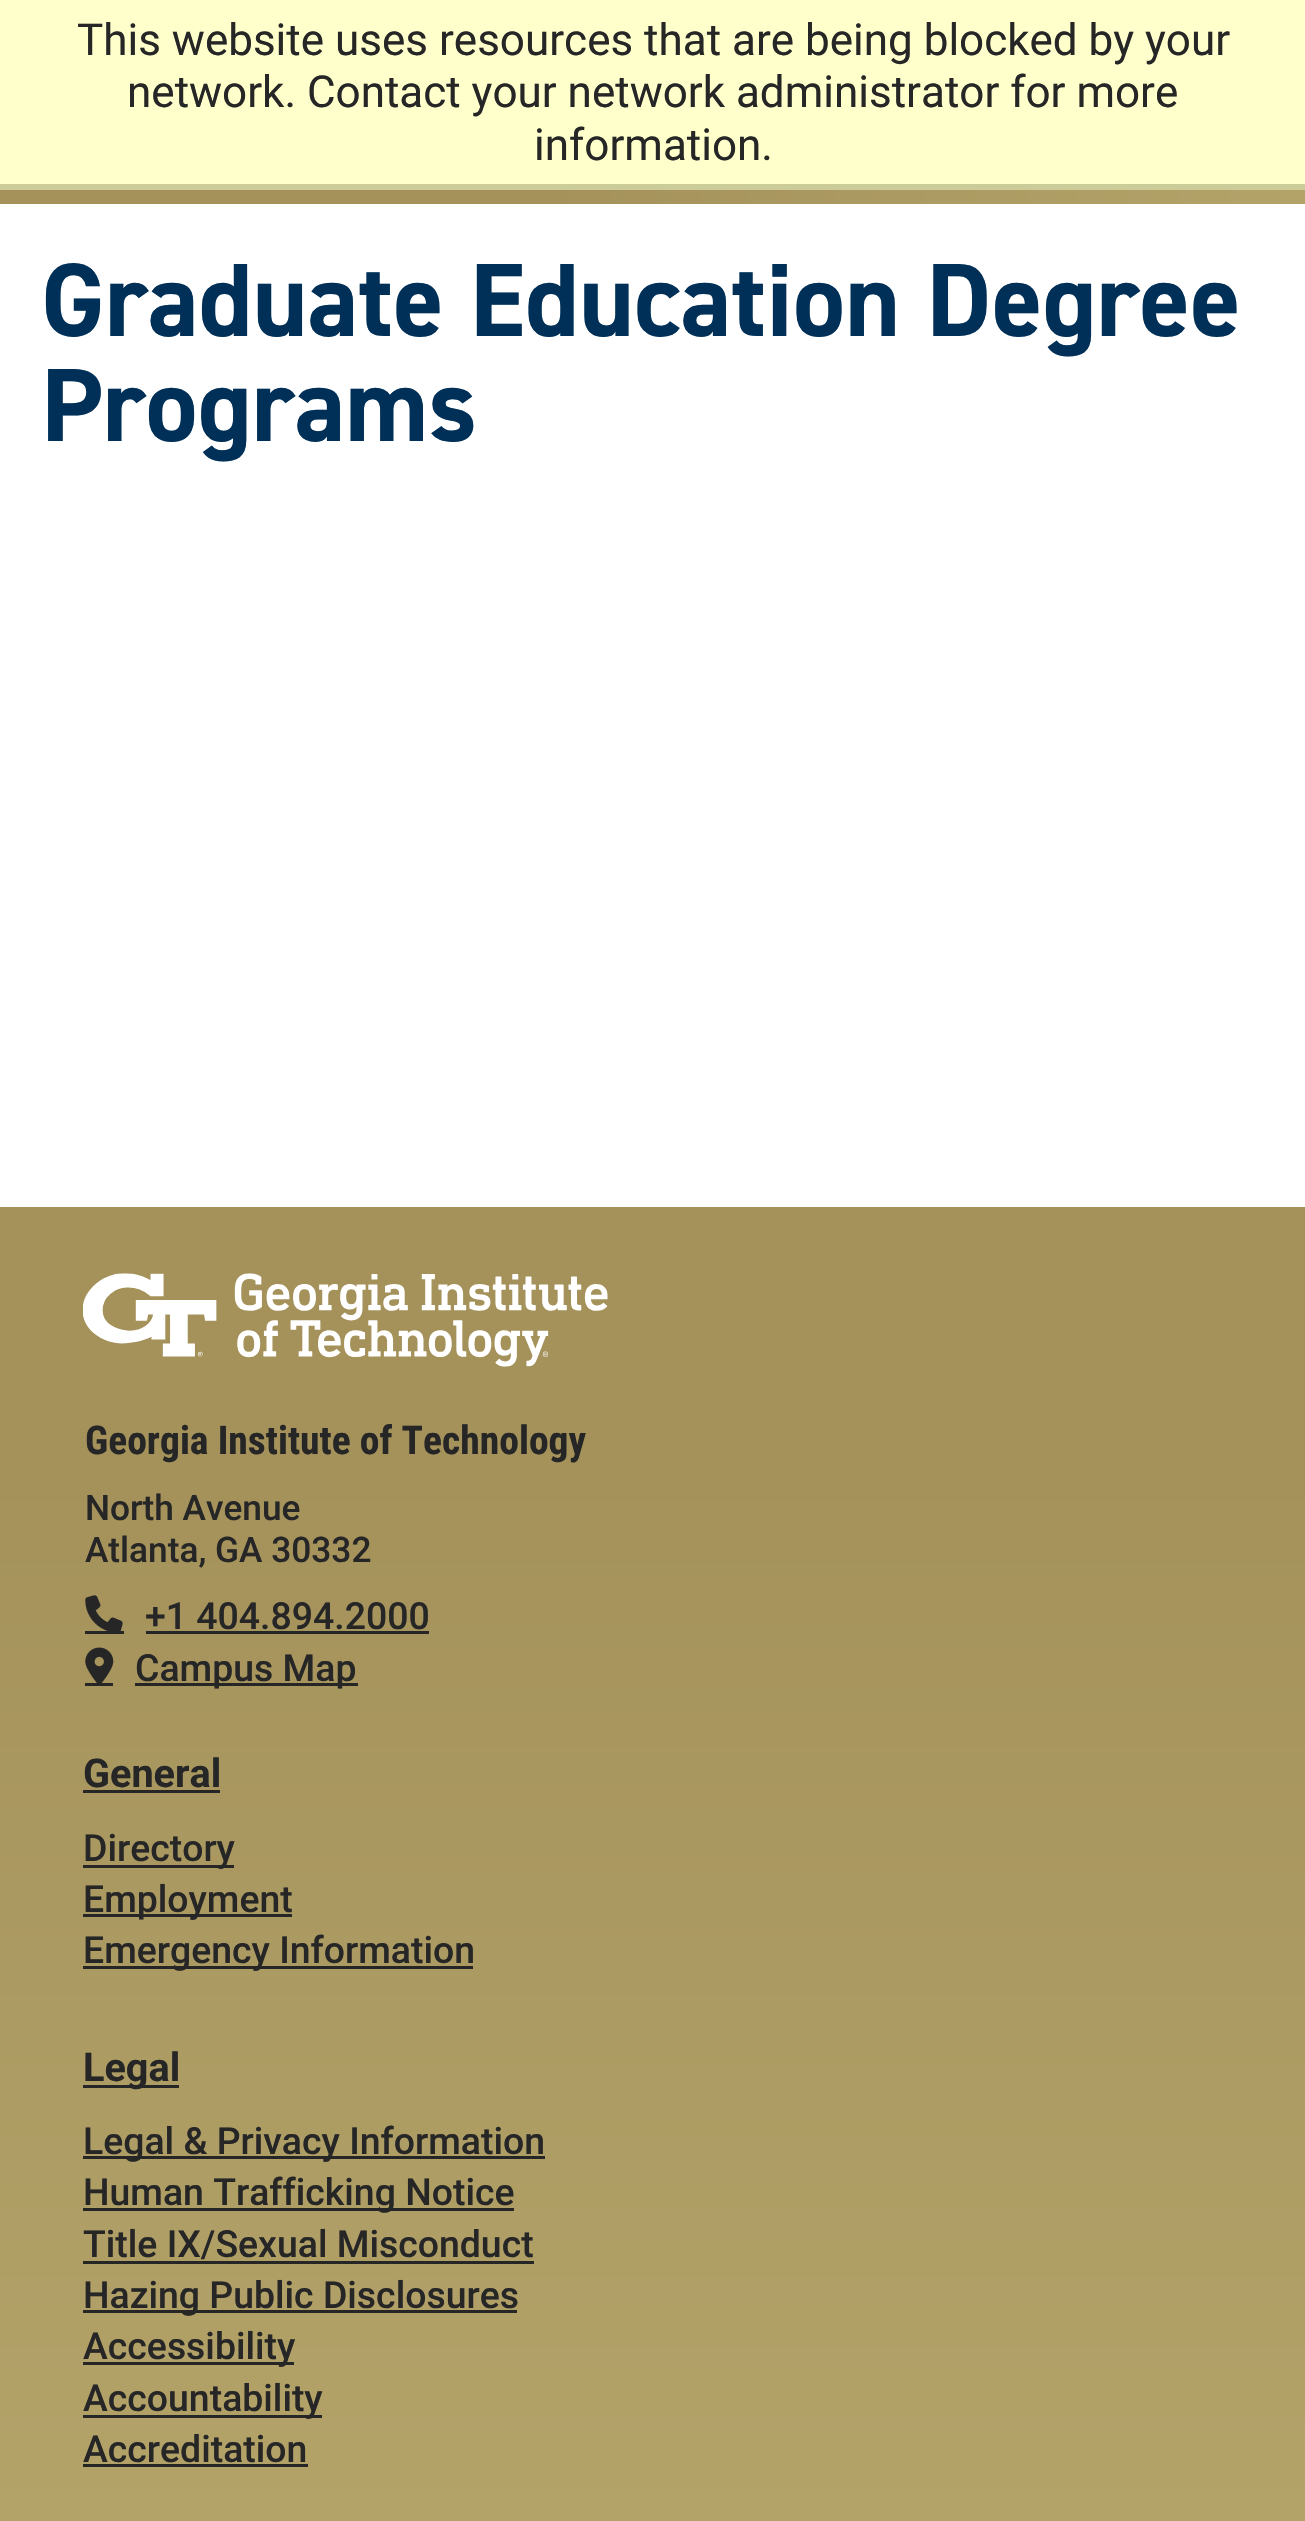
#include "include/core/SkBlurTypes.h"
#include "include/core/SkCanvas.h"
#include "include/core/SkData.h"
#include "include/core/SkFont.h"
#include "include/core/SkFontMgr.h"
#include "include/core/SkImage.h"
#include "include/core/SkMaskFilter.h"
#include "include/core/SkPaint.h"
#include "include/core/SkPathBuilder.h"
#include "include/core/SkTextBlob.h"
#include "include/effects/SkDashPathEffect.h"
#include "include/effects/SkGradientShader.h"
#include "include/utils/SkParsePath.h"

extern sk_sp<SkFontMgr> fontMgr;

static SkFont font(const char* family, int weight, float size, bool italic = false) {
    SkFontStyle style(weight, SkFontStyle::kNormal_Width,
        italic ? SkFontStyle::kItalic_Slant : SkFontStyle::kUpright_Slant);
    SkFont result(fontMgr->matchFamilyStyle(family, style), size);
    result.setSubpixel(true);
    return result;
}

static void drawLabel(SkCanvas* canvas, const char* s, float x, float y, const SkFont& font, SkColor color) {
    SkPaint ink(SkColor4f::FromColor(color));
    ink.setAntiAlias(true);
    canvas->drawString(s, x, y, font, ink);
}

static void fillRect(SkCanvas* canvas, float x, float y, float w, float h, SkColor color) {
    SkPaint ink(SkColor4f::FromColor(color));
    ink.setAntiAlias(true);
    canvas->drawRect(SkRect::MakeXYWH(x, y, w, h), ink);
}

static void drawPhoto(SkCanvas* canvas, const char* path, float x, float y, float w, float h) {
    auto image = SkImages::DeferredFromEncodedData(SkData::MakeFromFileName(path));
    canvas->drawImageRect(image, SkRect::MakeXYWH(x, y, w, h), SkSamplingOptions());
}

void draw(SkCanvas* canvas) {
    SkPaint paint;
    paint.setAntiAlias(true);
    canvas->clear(0xFFFFFFFF);
    fillRect(canvas, 0, 0, 1305, 184, 0xFFFFFFCC);
    fillRect(canvas, 0, 184, 1305, 6, 0xFFCCCC99);
    SkFont font1 = font("Roboto", 400, 44);
    drawLabel(canvas, "This website uses resources that are being blocked by your", 77, 55, font1, 0xFF262626);
    drawLabel(canvas, "network. Contact your network administrator for more", 127, 107, font1, 0xFF262626);
    drawLabel(canvas, "information.", 534, 160, font1, 0xFF262626);
    fillRect(canvas, 0, 190, 545, 14, 0xFFA4925A);
    {
        const SkColor colors[] = {0xFFA4925A, 0xFFB3A369};
        const float stops[] = {0, 1};
        const SkPoint ends[] = {{545, 102}, {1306, 102}};
        paint.setShader(SkGradientShader::MakeLinear(ends, colors, stops, 2, SkTileMode::kClamp));
        paint.setAlpha(255);
    }
    canvas->drawRect(SkRect::MakeXYWH(545, 190, 760, 14), paint);
    SkFont font2 = font("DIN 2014", 700, 104.5f);
    drawLabel(canvas, "Graduate Education Degree", 41, 336, font2, 0xFF003057);
    drawLabel(canvas, "Programs", 41, 441, font2, 0xFF003057);
    {
        const SkColor colors[] = {0xFFA4925A, 0xFFB3A369};
        const float stops[] = {0.2f, 1};
        const SkPoint ends[] = {{653, 1207}, {653, 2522}};
        paint.setShader(SkGradientShader::MakeLinear(ends, colors, stops, 2, SkTileMode::kClamp));
        paint.setAlpha(255);
    }
    canvas->drawRect(SkRect::MakeXYWH(0, 1207, 1305, 1314), paint);
    drawPhoto(canvas, "assets/img1.png", 83, 1273, 525, 94);
    SkFont font3 = font("Roboto Condensed", 700, 39.6f);
    drawLabel(canvas, "Georgia Institute of Technology", 85, 1454, font3, 0xFF262626);
    SkFont font4 = font("Roboto", 500, 35.25f);
    drawLabel(canvas, "North Avenue", 85, 1520, font4, 0xFF262626);
    drawLabel(canvas, "Atlanta, GA 30332", 85, 1562, font4, 0xFF262626);
    drawPhoto(canvas, "assets/img2.png", 85, 1595, 38, 36);
    SkFont font5 = font("Roboto", 500, 37.4f);
    drawLabel(canvas, "+1 404.894.2000", 145, 1629, font5, 0xFF262626);
    fillRect(canvas, 146, 1631, 283, 3, 0xFF262626);
    fillRect(canvas, 85, 1631, 39, 3, 0xFF262626);
    drawPhoto(canvas, "assets/img3.png", 85, 1647, 29, 36);
    fillRect(canvas, 135, 1683, 223, 3, 0xFF262626);
    drawLabel(canvas, "Campus Map", 135, 1681, font5, 0xFF262626);
    fillRect(canvas, 85, 1683, 28, 3, 0xFF262626);
    SkFont font6 = font("Roboto", 700, 39.6f);
    drawLabel(canvas, "General", 83, 1787, font6, 0xFF262626);
    fillRect(canvas, 83, 1790, 137, 3, 0xFF262626);
    fillRect(canvas, 83, 1865, 151, 3, 0xFF262626);
    drawLabel(canvas, "Directory", 83, 1861, font5, 0xFF262626);
    fillRect(canvas, 83, 1914, 209, 3, 0xFF262626);
    drawLabel(canvas, "Employment", 83, 1912, font5, 0xFF262626);
    fillRect(canvas, 83, 1966, 390, 3, 0xFF262626);
    drawLabel(canvas, "Emergency Information", 83, 1963, font5, 0xFF262626);
    fillRect(canvas, 83, 2085, 96, 3, 0xFF262626);
    drawLabel(canvas, "Legal", 83, 2081, font6, 0xFF262626);
    fillRect(canvas, 83, 2156, 462, 3, 0xFF262626);
    drawLabel(canvas, "Legal & Privacy Information", 83, 2154, font5, 0xFF262626);
    fillRect(canvas, 83, 2208, 431, 3, 0xFF262626);
    drawLabel(canvas, "Human Trafficking Notice", 83, 2205, font5, 0xFF262626);
    drawLabel(canvas, "Title IX/Sexual Misconduct", 83, 2257, font5, 0xFF262626);
    fillRect(canvas, 83, 2261, 451, 3, 0xFF262626);
    fillRect(canvas, 83, 2310, 434, 3, 0xFF262626);
    drawLabel(canvas, "Hazing Public Disclosures", 83, 2308, font5, 0xFF262626);
    fillRect(canvas, 83, 2362, 211, 3, 0xFF262626);
    drawLabel(canvas, "Accessibility", 83, 2359, font5, 0xFF262626);
    fillRect(canvas, 83, 2415, 239, 3, 0xFF262626);
    drawLabel(canvas, "Accountability", 83, 2411, font5, 0xFF262626);
    drawLabel(canvas, "Accreditation", 83, 2462, font5, 0xFF262626);
    fillRect(canvas, 83, 2464, 225, 3, 0xFF262626);
}
